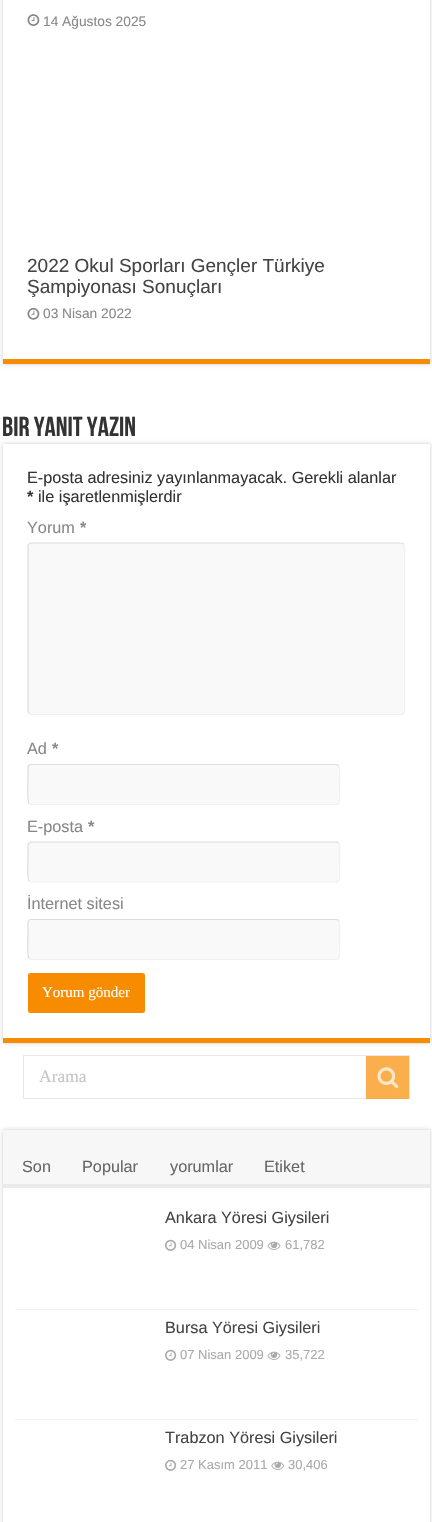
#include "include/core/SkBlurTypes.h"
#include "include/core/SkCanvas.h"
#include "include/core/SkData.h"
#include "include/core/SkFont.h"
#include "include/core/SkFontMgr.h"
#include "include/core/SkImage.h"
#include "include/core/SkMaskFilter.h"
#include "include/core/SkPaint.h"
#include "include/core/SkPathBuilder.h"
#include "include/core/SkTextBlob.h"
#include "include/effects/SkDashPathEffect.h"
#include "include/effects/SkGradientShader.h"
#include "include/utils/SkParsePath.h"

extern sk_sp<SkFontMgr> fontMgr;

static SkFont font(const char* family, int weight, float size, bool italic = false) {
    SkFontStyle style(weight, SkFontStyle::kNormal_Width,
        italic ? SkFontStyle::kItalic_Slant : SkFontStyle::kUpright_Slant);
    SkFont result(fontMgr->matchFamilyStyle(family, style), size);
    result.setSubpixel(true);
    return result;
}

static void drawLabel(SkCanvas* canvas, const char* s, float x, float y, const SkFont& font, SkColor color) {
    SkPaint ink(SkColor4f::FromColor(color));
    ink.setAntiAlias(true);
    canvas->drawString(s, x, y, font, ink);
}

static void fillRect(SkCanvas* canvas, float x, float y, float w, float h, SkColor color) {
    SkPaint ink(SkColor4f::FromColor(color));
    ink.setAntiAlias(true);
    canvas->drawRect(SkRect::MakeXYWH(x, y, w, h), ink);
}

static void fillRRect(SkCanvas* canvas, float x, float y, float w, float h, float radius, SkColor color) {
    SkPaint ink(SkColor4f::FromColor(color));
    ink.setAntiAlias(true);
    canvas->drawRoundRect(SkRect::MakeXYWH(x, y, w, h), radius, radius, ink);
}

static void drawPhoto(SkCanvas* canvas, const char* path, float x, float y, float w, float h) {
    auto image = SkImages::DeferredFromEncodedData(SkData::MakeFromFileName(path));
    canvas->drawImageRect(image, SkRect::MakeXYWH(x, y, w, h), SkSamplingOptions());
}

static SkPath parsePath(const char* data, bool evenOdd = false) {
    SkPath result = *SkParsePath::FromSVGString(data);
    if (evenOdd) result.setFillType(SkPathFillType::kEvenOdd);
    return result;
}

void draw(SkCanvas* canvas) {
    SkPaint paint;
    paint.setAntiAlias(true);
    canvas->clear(0xFFFFFFFF);
    paint.setColor(0xFFCACACA);
    paint.setMaskFilter(SkMaskFilter::MakeBlur(kNormal_SkBlurStyle, 2));
    canvas->drawRect(SkRect::MakeXYWH(3, -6, 427, 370), paint);
    paint.setMaskFilter(nullptr);
    fillRect(canvas, 3, 0, 427, 359, 0xFFFFFFFF);
    fillRect(canvas, 3, 359, 427, 5, 0xFFF88C00);
    drawPhoto(canvas, "assets/img1.png", 27, 14, 13, 12);
    SkFont font1 = font("Liberation Sans", 400, 13.75f);
    drawLabel(canvas, "14 Ağustos 2025", 43, 26, font1, 0xFF888888);
    SkFont font2 = font("Liberation Sans", 400, 19);
    drawLabel(canvas, "2022 Okul Sporları Gençler Türkiye", 27, 272, font2, 0xFF444444);
    drawLabel(canvas, "Şampiyonası Sonuçları", 27, 293, font2, 0xFF444444);
    drawPhoto(canvas, "assets/img2.png", 27, 307, 13, 13);
    drawLabel(canvas, "03 Nisan 2022", 43, 318, font1, 0xFF888888);
    SkFont font3 = font("Bebas Neue", 700, 27.5f);
    drawLabel(canvas, "Bir yanıt yazın", 2, 436, font3, 0xFF333333);
    paint.setMaskFilter(SkMaskFilter::MakeBlur(kNormal_SkBlurStyle, 2));
    canvas->drawRect(SkRect::MakeXYWH(3, 444, 427, 599), paint);
    paint.setMaskFilter(nullptr);
    fillRect(canvas, 3, 444, 427, 594, 0xFFFFFFFF);
    fillRect(canvas, 3, 1038, 427, 5, 0xFFF88C00);
    SkFont font4 = font("Liberation Sans", 400, 16.25f);
    drawLabel(canvas, "E-posta adresiniz yayınlanmayacak. Gerekli alanlar", 27, 483, font4, 0xFF333333);
    SkFont font5 = font("Liberation Sans", 700, 16.25f);
    drawLabel(canvas, "*", 27, 502, font5, 0xFF333333);
    drawLabel(canvas, "ile işaretlenmişlerdir", 38, 502, font4, 0xFF333333);
    drawLabel(canvas, "Yorum", 27, 533, font4, 0xFF888888);
    drawLabel(canvas, "*", 80, 533, font5, 0xFF888888);
    fillRRect(canvas, 28, 543, 377, 172, 4, 0xFFF9F9F9);
    paint.setStroke(true);
    paint.setStrokeWidth(1.2f);
    paint.setColor(0xFFF1F1F1);
    canvas->drawPath(parsePath("M403.5 544L404.5 546V711L403.5 713.5L401 714.5H31L29 713.5"), paint);
    paint.setColor(0xFFDDDDDD);
    canvas->drawPath(parsePath("M29 713.5L28 711V546L29 544L31 543H401L403.5 544"), paint);
    drawLabel(canvas, "Ad", 27, 754, font4, 0xFF888888);
    drawLabel(canvas, "*", 52, 754, font5, 0xFF888888);
    fillRRect(canvas, 28, 764, 312, 41, 4, 0xFFF9F9F9);
    paint.setColor(0xFFF1F1F1);
    canvas->drawPath(parsePath("M338.5 765.5C340.5 767.5 339.5 786 339.5 790V795.5C339.5 798 340.5 804.5 336 804.5H30.5L29 803.5"), paint);
    paint.setColor(0xFFDDDDDD);
    canvas->drawPath(parsePath("M29 803.5C27 801.5 28 782.5 28 779V773C28 771 27 764.5 31 764.5H337L338.5 765.5"), paint);
    drawLabel(canvas, "E-posta", 27, 832, font4, 0xFF888888);
    drawLabel(canvas, "*", 88, 832, font5, 0xFF888888);
    fillRRect(canvas, 28, 841, 312, 42, 4, 0xFFF9F9F9);
    paint.setColor(0xFFF1F1F1);
    canvas->drawPath(parsePath("M338.5 843C340.5 845 339.5 863.5 339.5 867.5V873C339.5 875.5 340.5 882 336 882H30.5L29 881"), paint);
    paint.setColor(0xFFDDDDDD);
    canvas->drawPath(parsePath("M29 881C27 879 28 860 28 856V850.5C28 848.5 27 842 31 842H337L338.5 843"), paint);
    drawLabel(canvas, "İnternet sitesi", 27, 909, font4, 0xFF888888);
    fillRRect(canvas, 28, 919, 312, 41, 4, 0xFFF9F9F9);
    paint.setColor(0xFFF1F1F1);
    canvas->drawPath(parsePath("M338.5 920.5C340.5 922.5 339.5 941 339.5 945V950.5C339.5 953 340.5 959.5 336 959.5H30.5L29 958.5"), paint);
    paint.setColor(0xFFDDDDDD);
    canvas->drawPath(parsePath("M29 958.5C27 956.5 28 937.5 28 934V928C28 926 27 919.5 31 919.5H337L338.5 920.5"), paint);
    fillRRect(canvas, 28, 973, 117, 40, 2.5f, 0xFFF88C00);
    SkFont font6 = font("Liberation Serif", 400, 15);
    drawLabel(canvas, "Yorum gönder", 42, 997, font6, 0xFFFFFFFF);
    paint.setStrokeWidth(1);
    paint.setColor(0xFFE8E8E8);
    canvas->drawRect(SkRect::MakeXYWH(23.5f, 1055.5f, 386, 43), paint);
    SkFont font7 = font("Liberation Serif", 400, 17.5f);
    drawLabel(canvas, "Arama", 39, 1082, font7, 0xFFC5C5C5);
    fillRect(canvas, 366, 1056, 43, 43, 0xB3F88C00);
    drawPhoto(canvas, "assets/img3.png", 377, 1067, 22, 22);
    canvas->save();
    canvas->clipPath(parsePath("M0 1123H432V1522H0ZM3 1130H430V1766H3Z", true), true);
    paint.setStroke(false);
    paint.setColor(0xFFCACACA);
    paint.setMaskFilter(SkMaskFilter::MakeBlur(kNormal_SkBlurStyle, 2));
    canvas->drawRect(SkRect::MakeXYWH(3, 1130, 427, 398), paint);
    paint.setMaskFilter(nullptr);
    canvas->restore();
    fillRect(canvas, 3, 1130, 427, 54, 0xFFF7F7F7);
    fillRect(canvas, 3, 1184, 427, 4, 0xFFEAEAEA);
    drawLabel(canvas, "Son", 22, 1172, font4, 0xFF666666);
    drawLabel(canvas, "Popular", 82, 1172, font4, 0xFF666666);
    drawLabel(canvas, "yorumlar", 170, 1172, font4, 0xFF666666);
    drawLabel(canvas, "Etiket", 264, 1172, font4, 0xFF666666);
    fillRect(canvas, 15, 1309, 403, 1, 0xFFF2F2F2);
    drawLabel(canvas, "Ankara Yöresi Giysileri", 165, 1223, font4, 0xFF444444);
    drawPhoto(canvas, "assets/img4.png", 165, 1239, 12, 12);
    SkFont font8 = font("Liberation Sans", 400, 13);
    drawLabel(canvas, "04 Nisan 2009", 180, 1249, font8, 0xFFAAAAAA);
    drawPhoto(canvas, "assets/img5.png", 267, 1241, 14, 9);
    drawLabel(canvas, "61,782", 285, 1249, font8, 0xFFAAAAAA);
    fillRect(canvas, 15, 1419, 403, 1, 0xFFF2F2F2);
    drawLabel(canvas, "Bursa Yöresi Giysileri", 165, 1333, font4, 0xFF444444);
    drawPhoto(canvas, "assets/img4.png", 165, 1349, 12, 12);
    drawLabel(canvas, "07 Nisan 2009", 180, 1359, font8, 0xFFAAAAAA);
    drawPhoto(canvas, "assets/img5.png", 267, 1351, 14, 9);
    drawLabel(canvas, "35,722", 285, 1359, font8, 0xFFAAAAAA);
    drawLabel(canvas, "Trabzon Yöresi Giysileri", 165, 1443, font4, 0xFF444444);
    drawPhoto(canvas, "assets/img4.png", 165, 1459, 12, 12);
    drawLabel(canvas, "27 Kasım 2011", 180, 1469, font8, 0xFFAAAAAA);
    drawPhoto(canvas, "assets/img6.png", 271, 1461, 14, 9);
    drawLabel(canvas, "30,406", 288, 1469, font8, 0xFFAAAAAA);
}
